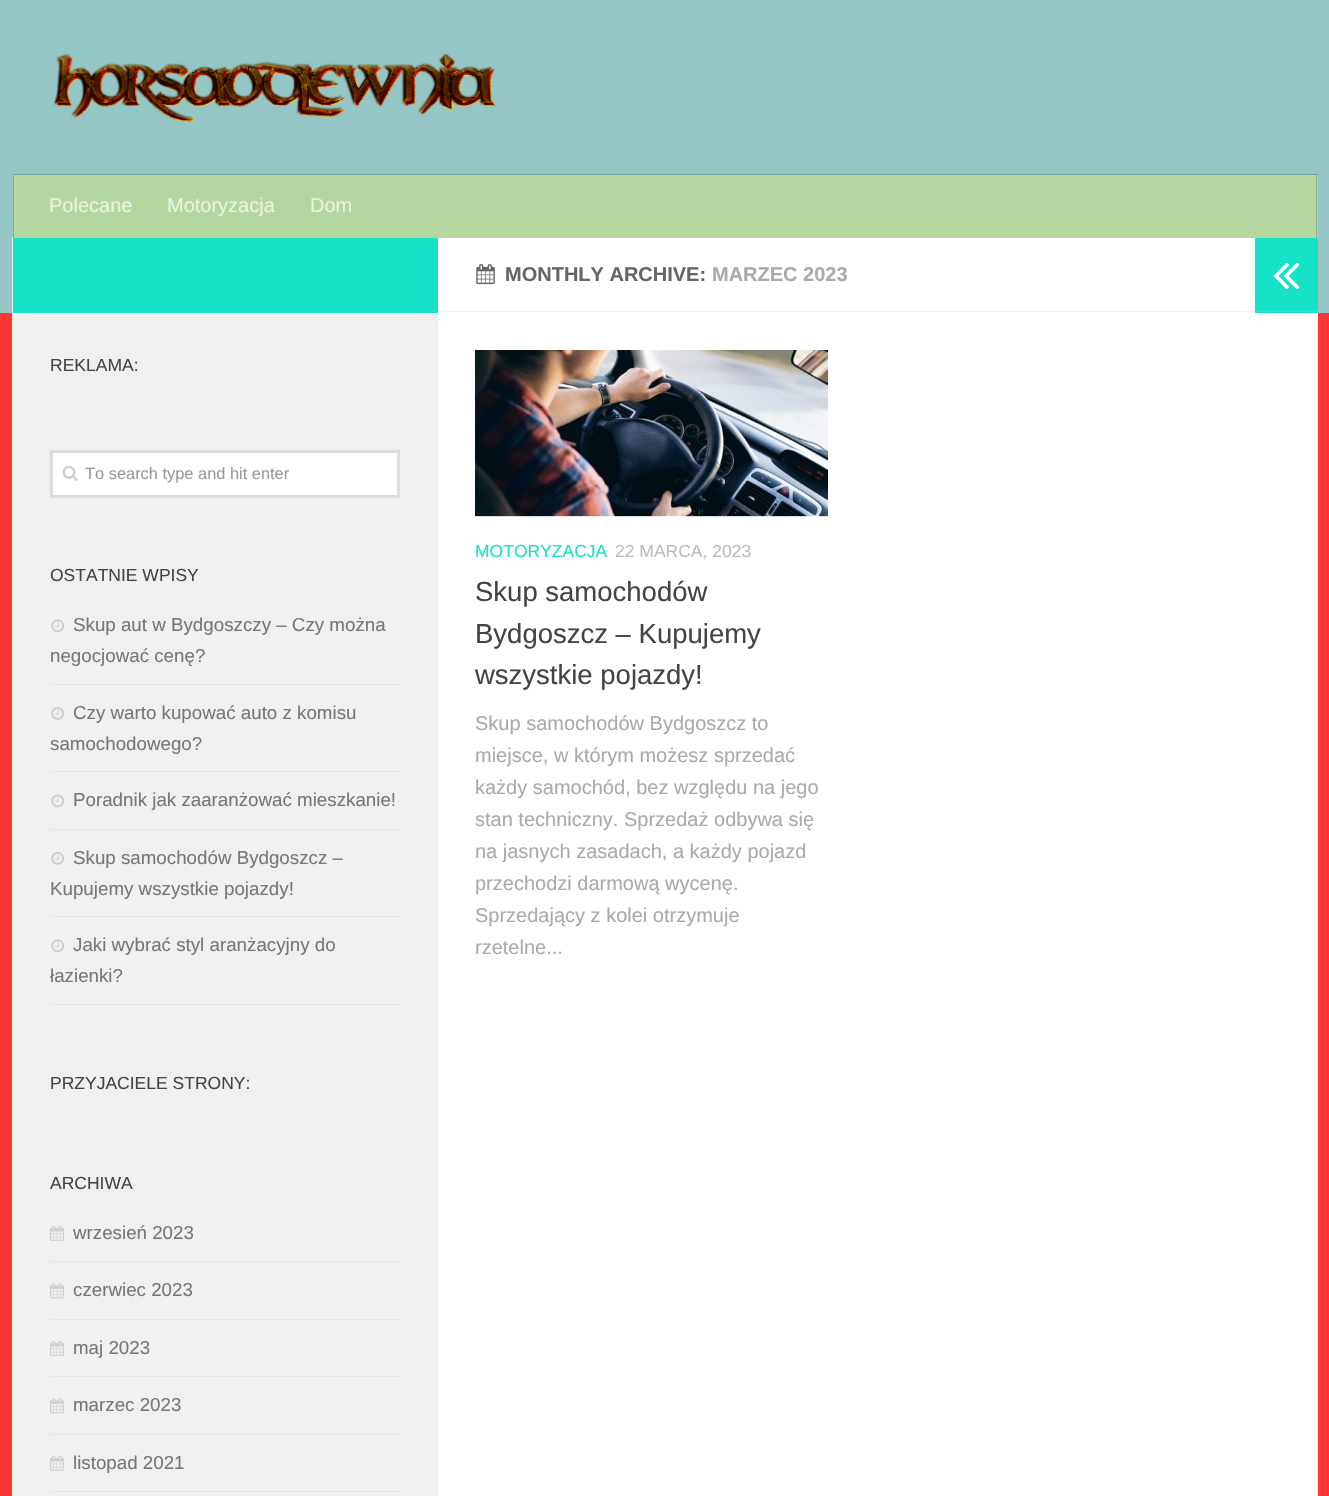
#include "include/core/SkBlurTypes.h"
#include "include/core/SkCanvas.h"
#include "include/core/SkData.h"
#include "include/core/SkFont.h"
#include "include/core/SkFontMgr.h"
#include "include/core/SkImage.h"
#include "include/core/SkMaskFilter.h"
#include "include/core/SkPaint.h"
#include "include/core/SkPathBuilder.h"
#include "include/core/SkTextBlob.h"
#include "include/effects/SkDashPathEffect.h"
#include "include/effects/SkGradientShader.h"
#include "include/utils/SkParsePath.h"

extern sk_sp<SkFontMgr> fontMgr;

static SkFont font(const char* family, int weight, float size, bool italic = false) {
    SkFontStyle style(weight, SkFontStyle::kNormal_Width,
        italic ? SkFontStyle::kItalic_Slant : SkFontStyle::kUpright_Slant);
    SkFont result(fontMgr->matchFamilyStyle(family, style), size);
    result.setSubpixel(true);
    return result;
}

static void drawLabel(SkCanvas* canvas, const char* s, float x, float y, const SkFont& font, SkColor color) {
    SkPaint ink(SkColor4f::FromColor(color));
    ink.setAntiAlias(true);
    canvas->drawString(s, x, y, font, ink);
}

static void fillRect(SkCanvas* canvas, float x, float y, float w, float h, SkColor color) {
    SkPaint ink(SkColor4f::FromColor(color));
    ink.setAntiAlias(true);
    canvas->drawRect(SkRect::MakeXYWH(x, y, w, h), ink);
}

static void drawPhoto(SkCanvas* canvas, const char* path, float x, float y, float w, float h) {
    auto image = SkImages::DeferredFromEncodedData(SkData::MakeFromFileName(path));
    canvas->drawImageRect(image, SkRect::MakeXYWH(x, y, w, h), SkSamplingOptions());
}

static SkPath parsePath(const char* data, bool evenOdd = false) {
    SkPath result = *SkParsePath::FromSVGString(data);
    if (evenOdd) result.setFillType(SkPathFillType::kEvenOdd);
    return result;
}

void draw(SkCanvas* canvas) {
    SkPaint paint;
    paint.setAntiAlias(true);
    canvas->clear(0xFFFC3535);
    fillRect(canvas, 0, 0, 1329, 313, 0xFF95C6C6);
    drawPhoto(canvas, "assets/img1.png", 53, 53, 444, 70);
    paint.setColor(0xFF779E9E);
    canvas->drawPath(parsePath("M13 174V175H1318V236V174Z"), paint);
    fillRect(canvas, 12, 237, 426, 1259, 0xFFF0F0F0);
    fillRect(canvas, 14, 176, 1304, 62, 0xFFB6D6A0);
    fillRect(canvas, 13, 175, 1305, 1, 0xFFBAD8A5);
    fillRect(canvas, 1316, 175, 1, 63, 0xFF92AB80);
    fillRect(canvas, 1316, 175, 1, 1, 0xFF97AF86);
    fillRect(canvas, 13, 175, 1, 63, 0xFF92AB80);
    fillRect(canvas, 13, 175, 1, 1, 0xFF97AF86);
    SkFont font1 = font("Liberation Sans", 400, 20);
    drawLabel(canvas, "Polecane", 49, 212, font1, 0xFFE9F3E3);
    drawLabel(canvas, "Motoryzacja", 167, 212, font1, 0xFFE9F3E3);
    drawLabel(canvas, "Dom", 310, 212, font1, 0xFFE9F3E3);
    fillRect(canvas, 438, 238, 880, 1258, 0xFFFFFFFF);
    fillRect(canvas, 13, 238, 425, 75, 0xFF16E2C7);
    SkFont font2 = font("Liberation Sans", 400, 17.5f);
    drawLabel(canvas, "REKLAMA:", 50, 371, font2, 0xFF444444);
    paint.setColor(0xFFFFFFFF);
    canvas->drawRect(SkRect::MakeXYWH(51.5f, 451.5f, 347, 45), paint);
    paint.setStroke(true);
    paint.setStrokeWidth(3);
    paint.setColor(0xFFDDDDDD);
    canvas->drawRect(SkRect::MakeXYWH(51.5f, 451.5f, 347, 45), paint);
    drawPhoto(canvas, "assets/img2.png", 62, 465, 16, 16);
    SkFont font3 = font("Liberation Sans", 400, 16.4f);
    drawLabel(canvas, "To search type and hit enter", 85, 479, font3, 0xFF999999);
    drawLabel(canvas, "OSTATNIE WPISY", 50, 581, font2, 0xFF444444);
    fillRect(canvas, 50, 684, 350, 1, 0xFFE4E4E4);
    drawPhoto(canvas, "assets/img3.png", 51, 619, 13, 14);
    SkFont font4 = font("Liberation Sans", 400, 18.75f);
    drawLabel(canvas, "Skup aut w Bydgoszczy – Czy można", 73, 631, font4, 0xFF777777);
    drawLabel(canvas, "negocjować cenę?", 50, 662, font4, 0xFF777777);
    fillRect(canvas, 50, 771, 350, 1, 0xFFE4E4E4);
    drawPhoto(canvas, "assets/img4.png", 51, 707, 13, 13);
    drawLabel(canvas, "Czy warto kupować auto z komisu", 73, 719, font4, 0xFF777777);
    drawLabel(canvas, "samochodowego?", 50, 750, font4, 0xFF777777);
    fillRect(canvas, 50, 829, 350, 1, 0xFFE4E4E4);
    drawPhoto(canvas, "assets/img3.png", 51, 794, 13, 14);
    drawLabel(canvas, "Poradnik jak zaaranżować mieszkanie!", 73, 806, font4, 0xFF777777);
    fillRect(canvas, 50, 916, 350, 1, 0xFFE4E4E4);
    drawPhoto(canvas, "assets/img4.png", 51, 852, 13, 13);
    drawLabel(canvas, "Skup samochodów Bydgoszcz –", 73, 864, font4, 0xFF777777);
    drawLabel(canvas, "Kupujemy wszystkie pojazdy!", 50, 895, font4, 0xFF777777);
    fillRect(canvas, 50, 1004, 350, 1, 0xFFE4E4E4);
    drawPhoto(canvas, "assets/img3.png", 51, 939, 13, 14);
    drawLabel(canvas, "Jaki wybrać styl aranżacyjny do", 73, 951, font4, 0xFF777777);
    drawLabel(canvas, "łazienki?", 50, 982, font4, 0xFF777777);
    drawLabel(canvas, "PRZYJACIELE STRONY:", 50, 1089, font2, 0xFF444444);
    drawLabel(canvas, "ARCHIWA", 50, 1189, font2, 0xFF444444);
    fillRect(canvas, 50, 1261, 350, 1, 0xFFE4E4E4);
    drawPhoto(canvas, "assets/img5.png", 50, 1226, 14, 15);
    drawLabel(canvas, "wrzesień 2023", 73, 1239, font4, 0xFF777777);
    fillRect(canvas, 50, 1319, 350, 1, 0xFFE4E4E4);
    drawPhoto(canvas, "assets/img6.png", 50, 1283, 14, 16);
    drawLabel(canvas, "czerwiec 2023", 73, 1296, font4, 0xFF777777);
    fillRect(canvas, 50, 1376, 350, 1, 0xFFE4E4E4);
    drawPhoto(canvas, "assets/img5.png", 50, 1341, 14, 15);
    drawLabel(canvas, "maj 2023", 73, 1354, font4, 0xFF777777);
    fillRect(canvas, 50, 1434, 350, 1, 0xFFE4E4E4);
    drawPhoto(canvas, "assets/img6.png", 50, 1398, 14, 16);
    drawLabel(canvas, "marzec 2023", 73, 1411, font4, 0xFF777777);
    fillRect(canvas, 50, 1491, 350, 1, 0xFFE4E4E4);
    drawPhoto(canvas, "assets/img5.png", 50, 1456, 14, 15);
    drawLabel(canvas, "listopad 2021", 73, 1469, font4, 0xFF777777);
    fillRect(canvas, 438, 311, 817, 1, 0xFFEEEEEE);
    drawPhoto(canvas, "assets/img7.png", 476, 264, 19, 21);
    SkFont font5 = font("Liberation Sans", 700, 20);
    drawLabel(canvas, "MONTHLY ARCHIVE:", 505, 281, font5, 0xFF666666);
    drawLabel(canvas, "MARZEC 2023", 712, 281, font5, 0xFFAAAAAA);
    drawPhoto(canvas, "assets/img8.png", 475, 350, 353, 167);
    drawLabel(canvas, "MOTORYZACJA", 475, 557, font2, 0xFF16E2C7);
    drawLabel(canvas, "22 MARCA, 2023", 615, 557, font2, 0xFFBBBBBB);
    SkFont font6 = font("Liberation Sans", 400, 27.5f);
    drawLabel(canvas, "Skup samochodów", 475, 601, font6, 0xFF444444);
    drawLabel(canvas, "Bydgoszcz – Kupujemy", 475, 643, font6, 0xFF444444);
    drawLabel(canvas, "wszystkie pojazdy!", 475, 684, font6, 0xFF444444);
    drawLabel(canvas, "Skup samochodów Bydgoszcz to", 475, 730, font1, 0xFFAAAAAA);
    drawLabel(canvas, "miejsce, w którym możesz sprzedać", 475, 762, font1, 0xFFAAAAAA);
    drawLabel(canvas, "każdy samochód, bez względu na jego", 475, 794, font1, 0xFFAAAAAA);
    drawLabel(canvas, "stan techniczny. Sprzedaż odbywa się", 475, 826, font1, 0xFFAAAAAA);
    drawLabel(canvas, "na jasnych zasadach, a każdy pojazd", 475, 858, font1, 0xFFAAAAAA);
    drawLabel(canvas, "przechodzi darmową wycenę.", 475, 890, font1, 0xFFAAAAAA);
    drawLabel(canvas, "Sprzedający z kolei otrzymuje", 475, 922, font1, 0xFFAAAAAA);
    drawLabel(canvas, "rzetelne...", 475, 954, font1, 0xFFAAAAAA);
    fillRect(canvas, 1255, 238, 63, 75, 0xFF16E2C7);
    fillRect(canvas, 1255, 311, 63, 1, 0xFF2DE5CD);
    drawPhoto(canvas, "assets/img9.png", 1273, 262, 27, 28);
}
